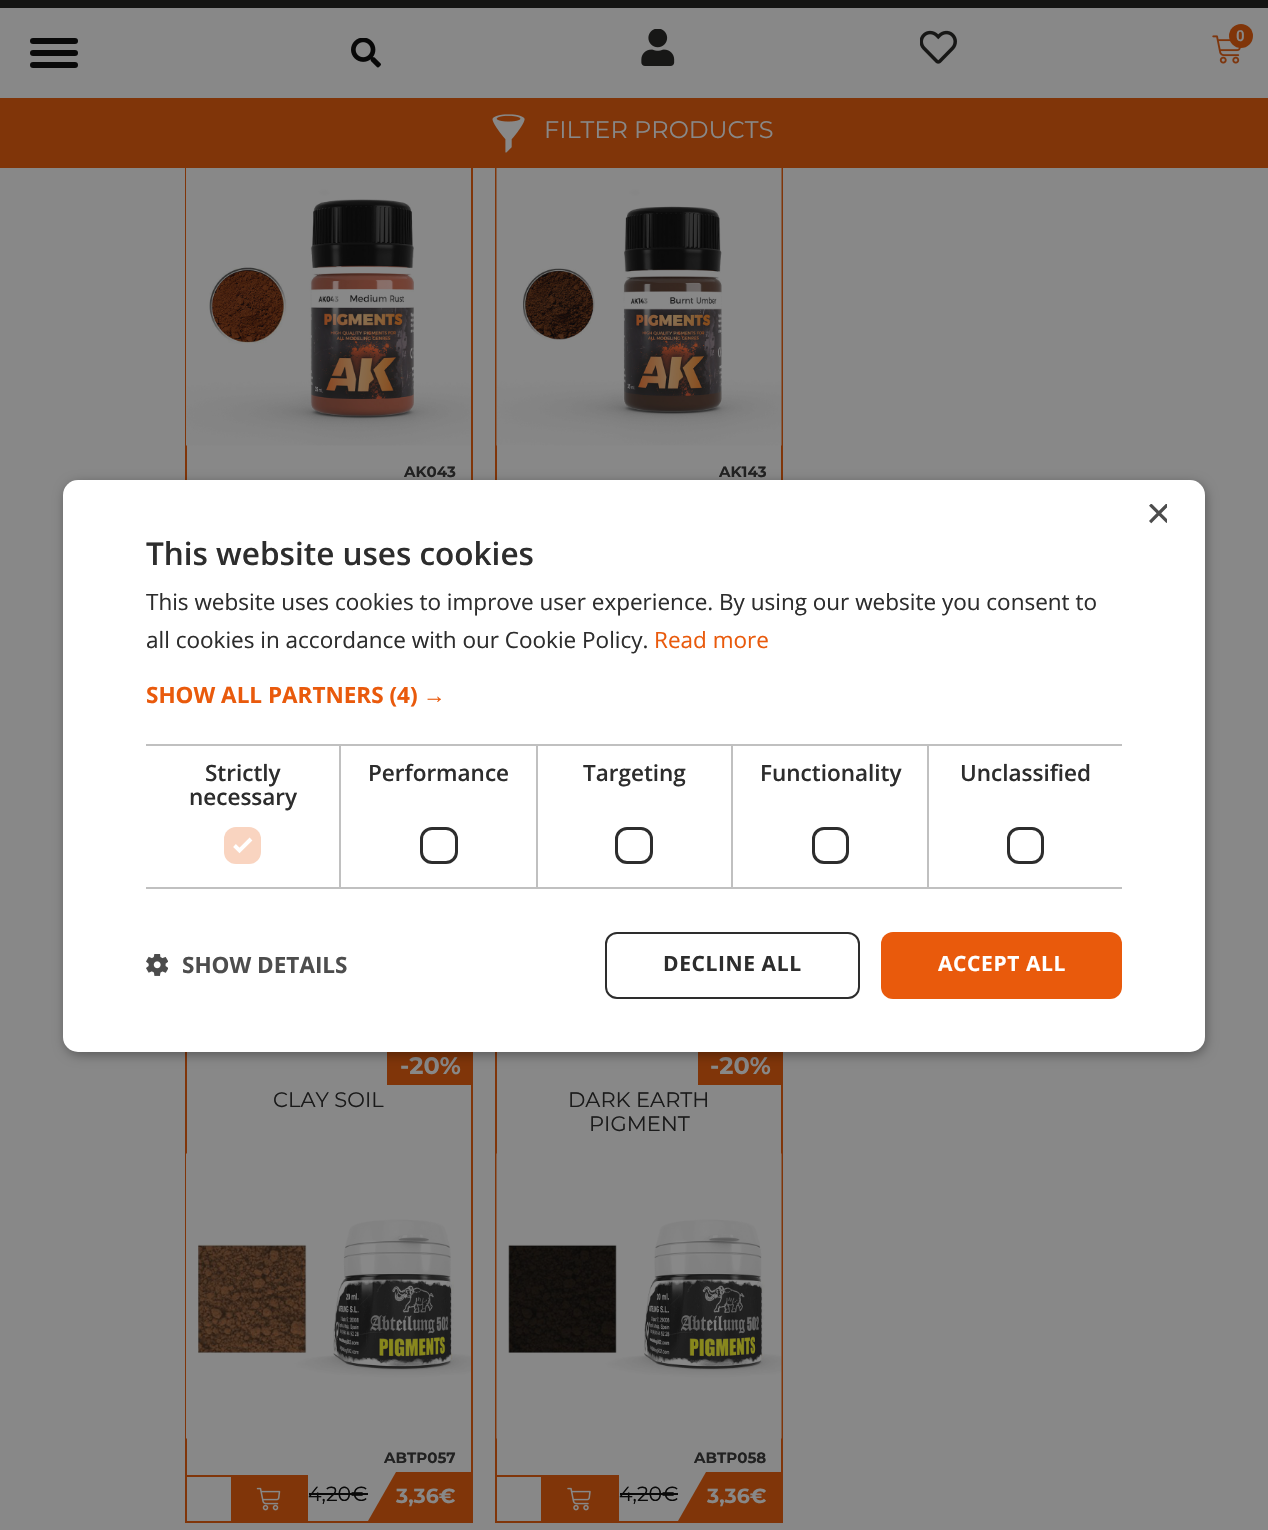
#include "include/core/SkBlurTypes.h"
#include "include/core/SkCanvas.h"
#include "include/core/SkData.h"
#include "include/core/SkFont.h"
#include "include/core/SkFontMgr.h"
#include "include/core/SkImage.h"
#include "include/core/SkMaskFilter.h"
#include "include/core/SkPaint.h"
#include "include/core/SkPathBuilder.h"
#include "include/core/SkTextBlob.h"
#include "include/effects/SkDashPathEffect.h"
#include "include/effects/SkGradientShader.h"
#include "include/utils/SkParsePath.h"

extern sk_sp<SkFontMgr> fontMgr;

static SkFont font(const char* family, int weight, float size, bool italic = false) {
    SkFontStyle style(weight, SkFontStyle::kNormal_Width,
        italic ? SkFontStyle::kItalic_Slant : SkFontStyle::kUpright_Slant);
    SkFont result(fontMgr->matchFamilyStyle(family, style), size);
    result.setSubpixel(true);
    return result;
}

static void drawLabel(SkCanvas* canvas, const char* s, float x, float y, const SkFont& font, SkColor color) {
    SkPaint ink(SkColor4f::FromColor(color));
    ink.setAntiAlias(true);
    canvas->drawString(s, x, y, font, ink);
}

static void drawTracked(SkCanvas* canvas, const char* s, float x, float y, const SkFont& font, const SkPaint& ink, float letter, float word) {
    std::vector<SkGlyphID> glyphs(font.countText(s, strlen(s), SkTextEncoding::kUTF8));
    std::vector<float> xs(glyphs.size());
    font.textToGlyphs(s, strlen(s), SkTextEncoding::kUTF8, glyphs);
    font.getXPos(glyphs, xs, x);
    float extra = 0;
    for (size_t i = 0; i < glyphs.size(); i++) {
        xs[i] += extra;
        extra += letter + word * (glyphs[i] == font.unicharToGlyph(' '));
    }
    canvas->drawTextBlob(SkTextBlob::MakeFromPosHGlyphs(glyphs, xs, y, font), 0, 0, ink);
}

static void fillRect(SkCanvas* canvas, float x, float y, float w, float h, SkColor color) {
    SkPaint ink(SkColor4f::FromColor(color));
    ink.setAntiAlias(true);
    canvas->drawRect(SkRect::MakeXYWH(x, y, w, h), ink);
}

static void fillRRect(SkCanvas* canvas, float x, float y, float w, float h, float radius, SkColor color) {
    SkPaint ink(SkColor4f::FromColor(color));
    ink.setAntiAlias(true);
    canvas->drawRoundRect(SkRect::MakeXYWH(x, y, w, h), radius, radius, ink);
}

static void drawPhoto(SkCanvas* canvas, const char* path, float x, float y, float w, float h) {
    auto image = SkImages::DeferredFromEncodedData(SkData::MakeFromFileName(path));
    canvas->drawImageRect(image, SkRect::MakeXYWH(x, y, w, h), SkSamplingOptions());
}

static SkPath parsePath(const char* data, bool evenOdd = false) {
    SkPath result = *SkParsePath::FromSVGString(data);
    if (evenOdd) result.setFillType(SkPathFillType::kEvenOdd);
    return result;
}

void draw(SkCanvas* canvas) {
    SkPaint paint;
    paint.setAntiAlias(true);
    canvas->clear(0xFF888888);
    paint.setStroke(true);
    paint.setStrokeWidth(2);
    paint.setColor(0xFF803509);
    canvas->drawRect(SkRect::MakeXYWH(186, 57, 286, 472), paint);
    canvas->drawRect(SkRect::MakeXYWH(496, 57, 286, 472), paint);
    fillRect(canvas, 185, 56, 598, 42, 0xFF888888);
    fillRect(canvas, 0, 0, 1268, 8, 0xFF141413);
    drawPhoto(canvas, "assets/img1.png", 641, 29, 34, 37);
    drawPhoto(canvas, "assets/img2.png", 920, 30, 37, 34);
    drawPhoto(canvas, "assets/img3.png", 1212, 35, 29, 29);
    paint.setStroke(false);
    canvas->drawCircle(1241, 36, 12, paint);
    SkFont font1 = font("Roboto", 600, 15);
    drawLabel(canvas, "0", 1236, 41, font1, 0xFF888888);
    fillRRect(canvas, 30, 38, 48, 6, 3, 0xFF090909);
    fillRRect(canvas, 30, 50, 48, 6, 3, 0xFF090909);
    fillRRect(canvas, 30, 62, 48, 6, 3, 0xFF090909);
    drawPhoto(canvas, "assets/img4.png", 351, 38, 30, 30);
    fillRect(canvas, 0, 98, 1268, 70, 0xFF803509);
    drawPhoto(canvas, "assets/img5.png", 492, 114, 33, 39);
    SkFont font2 = font("Montserrat", 400, 24);
    drawLabel(canvas, "FILTER PRODUCTS", 544, 138, font2, 0xFF888888);
    drawPhoto(canvas, "assets/img6.png", 186, 168, 285, 278);
    SkFont font3 = font("Montserrat", 700, 15);
    drawLabel(canvas, "AK043", 404, 477, font3, 0xFF222222);
    drawPhoto(canvas, "assets/img7.png", 496, 168, 286, 278);
    drawLabel(canvas, "AK143", 719, 477, font3, 0xFF222222);
    paint.setStroke(true);
    canvas->drawRect(SkRect::MakeXYWH(186, 1050, 286, 472), paint);
    fillRect(canvas, 387, 1052, 84, 33, 0xFF803509);
    SkFont font4 = font("Montserrat", 700, 24);
    drawLabel(canvas, "-20%", 400, 1074, font4, 0xFF888888);
    canvas->drawRect(SkRect::MakeXYWH(186, 1476, 46, 46), paint);
    fillRect(canvas, 233, 1475, 75, 46, 0xFF803509);
    drawPhoto(canvas, "assets/img8.png", 256, 1487, 25, 24);
    SkFont font5 = font("Montserrat", 400, 21);
    drawLabel(canvas, "CLAY SOIL", 273, 1107, font5, 0xFF1A1A1A);
    drawPhoto(canvas, "assets/img9.png", 186, 1153, 285, 286);
    drawLabel(canvas, "ABTP057", 384, 1463, font3, 0xFF222222);
    SkFont font6 = font("Montserrat", 400, 20.5f);
    drawLabel(canvas, "4,20€", 308, 1501, font6, 0xFF090909);
    fillRect(canvas, 309, 1493, 59, 2, 0xFF090909);
    paint.setStroke(false);
    canvas->drawPath(parsePath("M471 1521H368L396 1472H471Z"), paint);
    SkFont font7 = font("Montserrat", 700, 20.5f);
    drawLabel(canvas, "3,36€", 396, 1503, font7, 0xFF888888);
    paint.setStroke(true);
    canvas->drawRect(SkRect::MakeXYWH(496, 1050, 286, 472), paint);
    fillRect(canvas, 698, 1052, 83, 33, 0xFF803509);
    drawLabel(canvas, "-20%", 710, 1074, font4, 0xFF888888);
    canvas->drawRect(SkRect::MakeXYWH(496, 1476, 46, 46), paint);
    fillRect(canvas, 543, 1475, 74, 46, 0xFF803509);
    fillRect(canvas, 617, 1475, 2, 48, 0xFF803509);
    drawPhoto(canvas, "assets/img10.png", 567, 1487, 24, 24);
    drawLabel(canvas, "DARK EARTH", 568, 1107, font5, 0xFF1A1A1A);
    drawLabel(canvas, "PIGMENT", 589, 1131, font5, 0xFF1A1A1A);
    drawPhoto(canvas, "assets/img11.png", 496, 1153, 286, 286);
    drawLabel(canvas, "ABTP058", 694, 1463, font3, 0xFF222222);
    drawLabel(canvas, "4,20€", 619, 1501, font6, 0xFF090909);
    fillRect(canvas, 620, 1493, 58, 2, 0xFF090909);
    paint.setStroke(false);
    canvas->drawPath(parsePath("M782 1521H678L706 1472H782Z"), paint);
    drawLabel(canvas, "3,36€", 707, 1503, font7, 0xFF888888);
    paint.setColor(0x59000000);
    paint.setMaskFilter(SkMaskFilter::MakeBlur(kNormal_SkBlurStyle, 6));
    canvas->drawRoundRect(SkRect::MakeXYWH(65, 483, 1141, 572), 15, 15, paint);
    paint.setMaskFilter(nullptr);
    fillRRect(canvas, 63, 480, 1142, 572, 15, 0xFFFFFFFF);
    canvas->save();
    canvas->clipRect(SkRect::MakeXYWH(1145, 504, 22, 23));
    SkFont font8 = font("Liberation Sans", 400, 44);
    drawLabel(canvas, "×", 1146, 528, font8, 0xFF4D4D4D);
    canvas->restore();
    SkFont font9 = font("Open Sans", 600, 31.5f);
    drawLabel(canvas, "This website uses cookies", 146, 565, font9, 0xFF2D2D2D);
    SkFont font10 = font("Open Sans", 400, 22.5f);
    drawLabel(canvas, "This website uses cookies to improve user experience. By using our website you consent to", 146, 610, font10, 0xFF2D2D2D);
    drawLabel(canvas, "all cookies in accordance with our Cookie Policy.", 146, 648, font10, 0xFF2D2D2D);
    drawLabel(canvas, "Read more", 654, 648, font10, 0xFFE95A0C);
    SkFont font11 = font("Open Sans", 700, 22.5f);
    drawLabel(canvas, "SHOW ALL PARTNERS (4)", 146, 703, font11, 0xFFE95A0C);
    SkFont font12 = font("Liberation Sans", 700, 22.5f);
    drawLabel(canvas, "→", 423, 703, font12, 0xFFE95A0C);
    fillRect(canvas, 146, 744, 391, 2, 0xFFC0C0C0);
    fillRect(canvas, 339, 744, 2, 144, 0xFFC0C0C0);
    fillRect(canvas, 146, 887, 195, 2, 0xFFC0C0C0);
    SkFont font13 = font("Open Sans", 600, 22.5f);
    drawLabel(canvas, "Strictly", 205, 781, font13, 0xFF2D2D2D);
    drawLabel(canvas, "necessary", 189, 805, font13, 0xFF2D2D2D);
    fillRRect(canvas, 224, 827, 37, 37, 12, 0xFFF9D4C0);
    paint.setStroke(true);
    paint.setStrokeWidth(3.9f);
    paint.setColor(0xFFFFFFFF);
    canvas->drawPath(parsePath("M234.5 845.5L239.5 850.5L251 839"), paint);
    fillRect(canvas, 536, 744, 2, 144, 0xFFC0C0C0);
    fillRect(canvas, 341, 887, 196, 2, 0xFFC0C0C0);
    drawLabel(canvas, "Performance", 368, 781, font13, 0xFF2D2D2D);
    paint.setStrokeWidth(3);
    paint.setColor(0xFF2D2D2D);
    canvas->drawRoundRect(SkRect::MakeXYWH(421.5f, 828.5f, 35, 34), 10.5f, 10.5f, paint);
    fillRect(canvas, 537, 744, 195, 2, 0xFFC0C0C0);
    fillRect(canvas, 731, 744, 2, 144, 0xFFC0C0C0);
    fillRect(canvas, 537, 887, 195, 2, 0xFFC0C0C0);
    drawLabel(canvas, "Targeting", 583, 781, font13, 0xFF2D2D2D);
    canvas->drawRoundRect(SkRect::MakeXYWH(616.5f, 828.5f, 35, 34), 10.5f, 10.5f, paint);
    fillRect(canvas, 732, 744, 390, 2, 0xFFC0C0C0);
    fillRect(canvas, 927, 744, 2, 144, 0xFFC0C0C0);
    fillRect(canvas, 732, 887, 390, 2, 0xFFC0C0C0);
    drawLabel(canvas, "Functionality", 760, 781, font13, 0xFF2D2D2D);
    canvas->drawRoundRect(SkRect::MakeXYWH(813.5f, 828.5f, 34, 34), 10.5f, 10.5f, paint);
    drawLabel(canvas, "Unclassified", 960, 781, font13, 0xFF2D2D2D);
    canvas->drawRoundRect(SkRect::MakeXYWH(1008.5f, 828.5f, 34, 34), 10.5f, 10.5f, paint);
    drawPhoto(canvas, "assets/img12.png", 146, 954, 22, 22);
    drawLabel(canvas, "SHOW DETAILS", 182, 973, font11, 0xFF4D4D4D);
    paint.setStrokeWidth(2);
    canvas->drawRoundRect(SkRect::MakeXYWH(606, 933, 253, 65), 11, 11, paint);
    SkFont font14 = font("Open Sans", 700, 21);
    paint.setStroke(false);
    drawTracked(canvas, "DECLINE ALL", 663, 971, font14, paint, 0.6f, 0);
    fillRRect(canvas, 881, 932, 241, 67, 12, 0xFFE95A0C);
    paint.setColor(0xFFFFFFFF);
    drawTracked(canvas, "ACCEPT ALL", 938, 971, font14, paint, 0.6f, 0);
}
